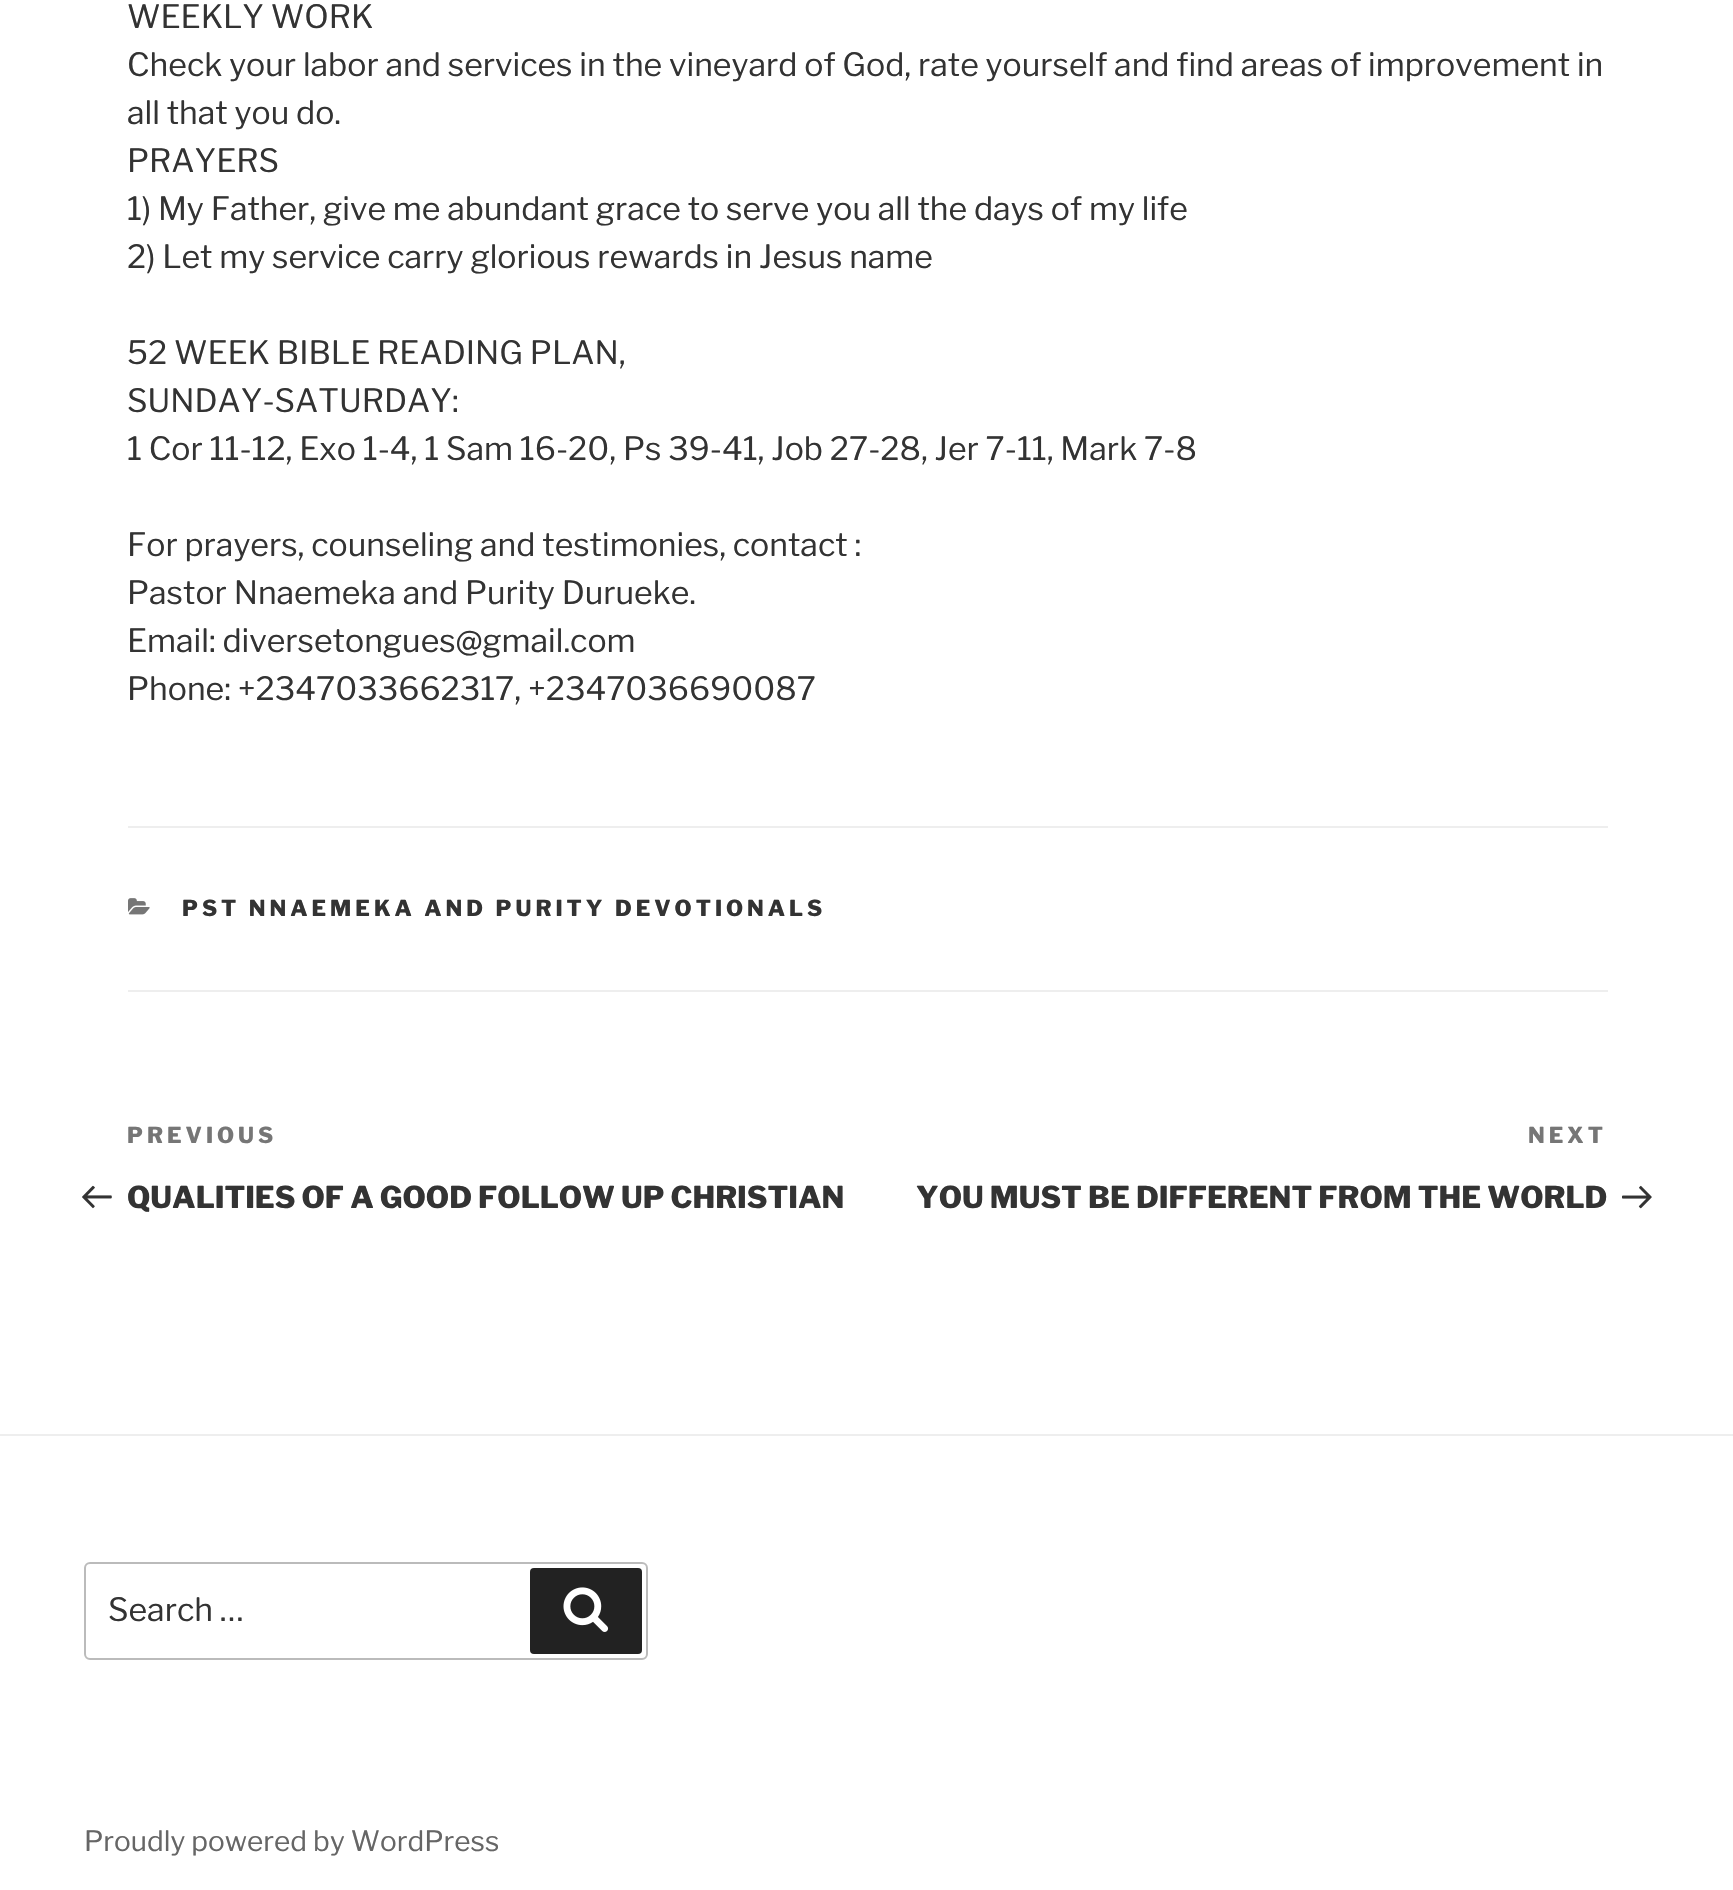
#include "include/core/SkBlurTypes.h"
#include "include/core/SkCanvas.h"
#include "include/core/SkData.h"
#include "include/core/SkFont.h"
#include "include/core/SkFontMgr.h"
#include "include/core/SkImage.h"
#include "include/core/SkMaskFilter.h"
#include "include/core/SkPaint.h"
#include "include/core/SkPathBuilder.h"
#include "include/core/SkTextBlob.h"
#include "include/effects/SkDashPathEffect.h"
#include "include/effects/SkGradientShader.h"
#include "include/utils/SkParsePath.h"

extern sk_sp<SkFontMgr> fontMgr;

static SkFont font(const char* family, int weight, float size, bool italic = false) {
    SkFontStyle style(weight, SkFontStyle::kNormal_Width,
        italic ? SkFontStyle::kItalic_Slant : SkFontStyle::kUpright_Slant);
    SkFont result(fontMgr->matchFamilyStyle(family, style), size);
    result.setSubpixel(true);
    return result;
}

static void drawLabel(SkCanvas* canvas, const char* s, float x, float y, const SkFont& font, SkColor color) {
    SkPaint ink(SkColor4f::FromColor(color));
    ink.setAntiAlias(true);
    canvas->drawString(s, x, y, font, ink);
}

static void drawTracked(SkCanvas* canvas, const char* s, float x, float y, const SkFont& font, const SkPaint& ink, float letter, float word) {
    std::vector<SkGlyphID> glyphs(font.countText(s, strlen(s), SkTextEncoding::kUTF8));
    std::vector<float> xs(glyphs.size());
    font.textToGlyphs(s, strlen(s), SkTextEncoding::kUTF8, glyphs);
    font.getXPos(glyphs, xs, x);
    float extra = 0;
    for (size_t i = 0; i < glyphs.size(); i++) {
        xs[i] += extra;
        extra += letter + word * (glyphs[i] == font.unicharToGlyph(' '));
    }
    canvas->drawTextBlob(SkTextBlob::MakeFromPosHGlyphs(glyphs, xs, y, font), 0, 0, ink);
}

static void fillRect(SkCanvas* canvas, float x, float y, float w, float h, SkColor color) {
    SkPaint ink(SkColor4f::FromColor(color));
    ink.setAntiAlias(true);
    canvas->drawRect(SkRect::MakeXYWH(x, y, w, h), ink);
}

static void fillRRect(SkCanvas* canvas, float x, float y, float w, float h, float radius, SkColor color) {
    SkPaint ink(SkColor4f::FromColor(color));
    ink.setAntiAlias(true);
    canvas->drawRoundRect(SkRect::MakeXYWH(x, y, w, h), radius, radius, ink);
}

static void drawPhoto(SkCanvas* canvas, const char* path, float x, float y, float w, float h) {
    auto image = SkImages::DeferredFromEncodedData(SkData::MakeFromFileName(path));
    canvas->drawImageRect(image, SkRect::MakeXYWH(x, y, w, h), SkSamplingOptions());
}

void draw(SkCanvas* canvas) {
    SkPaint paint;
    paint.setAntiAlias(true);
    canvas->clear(0xFFFFFFFF);
    SkFont font1 = font("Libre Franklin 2", 100, 32);
    drawLabel(canvas, "WEEKLY WORK", 127, 28, font1, 0xFF333333);
    drawLabel(canvas, "Check your labor and services in the vineyard of God, rate yourself and find areas of improvement in", 127, 76, font1, 0xFF333333);
    drawLabel(canvas, "all that you do.", 127, 124, font1, 0xFF333333);
    drawLabel(canvas, "PRAYERS", 127, 172, font1, 0xFF333333);
    drawLabel(canvas, "1) My Father, give me abundant grace to serve you all the days of my life", 127, 220, font1, 0xFF333333);
    drawLabel(canvas, "2) Let my service carry glorious rewards in Jesus name", 127, 268, font1, 0xFF333333);
    drawLabel(canvas, "52 WEEK BIBLE READING PLAN,", 127, 364, font1, 0xFF333333);
    drawLabel(canvas, "SUNDAY-SATURDAY:", 127, 412, font1, 0xFF333333);
    drawLabel(canvas, "1 Cor 11-12, Exo 1-4, 1 Sam 16-20, Ps 39-41, Job 27-28, Jer 7-11, Mark 7-8", 127, 460, font1, 0xFF333333);
    drawLabel(canvas, "For prayers, counseling and testimonies, contact :", 127, 556, font1, 0xFF333333);
    drawLabel(canvas, "Pastor Nnaemeka and Purity Durueke.", 127, 604, font1, 0xFF333333);
    drawLabel(canvas, "Email: diversetongues@gmail.com", 127, 652, font1, 0xFF333333);
    drawLabel(canvas, "Phone: +2347033662317, +2347036690087", 127, 700, font1, 0xFF333333);
    fillRect(canvas, 128, 826, 1480, 2, 0xFFEEEEEE);
    fillRect(canvas, 128, 990, 1480, 2, 0xFFEEEEEE);
    drawPhoto(canvas, "assets/img1.png", 128, 898, 22, 17);
    SkFont font2 = font("Libre Franklin", 100, 22);
    paint.setColor(0xFF333333);
    drawTracked(canvas, "PST NNAEMEKA AND PURITY DEVOTIONALS", 182, 916, font2, paint, 4, 0);
    paint.setColor(0xFF767676);
    drawTracked(canvas, "PREVIOUS", 127, 1143, font2, paint, 4, 0);
    drawPhoto(canvas, "assets/img2.png", 82, 1185, 30, 24);
    SkFont font3 = font("Libre Franklin", 100, 30);
    drawLabel(canvas, "QUALITIES OF A GOOD FOLLOW UP CHRISTIAN", 127, 1208, font3, 0xFF333333);
    drawTracked(canvas, "NEXT", 1528, 1143, font2, paint, 4, 0);
    drawLabel(canvas, "YOU MUST BE DIFFERENT FROM THE WORLD", 916, 1208, font3, 0xFF333333);
    drawPhoto(canvas, "assets/img3.png", 1622, 1185, 30, 24);
    fillRect(canvas, 0, 1434, 1733, 2, 0xFFEEEEEE);
    paint.setStroke(true);
    paint.setStrokeWidth(2);
    paint.setColor(0xFFBBBBBB);
    canvas->drawRoundRect(SkRect::MakeXYWH(85, 1563, 562, 96), 5, 5, paint);
    drawLabel(canvas, "Search …", 108, 1621, font1, 0xFF333333);
    fillRRect(canvas, 530, 1568, 112, 86, 4, 0xFF222222);
    drawPhoto(canvas, "assets/img4.png", 563, 1587, 46, 45);
    SkFont font4 = font("Libre Franklin 2", 100, 28);
    drawLabel(canvas, "Proudly powered by WordPress", 84, 1851, font4, 0xFF666666);
}
